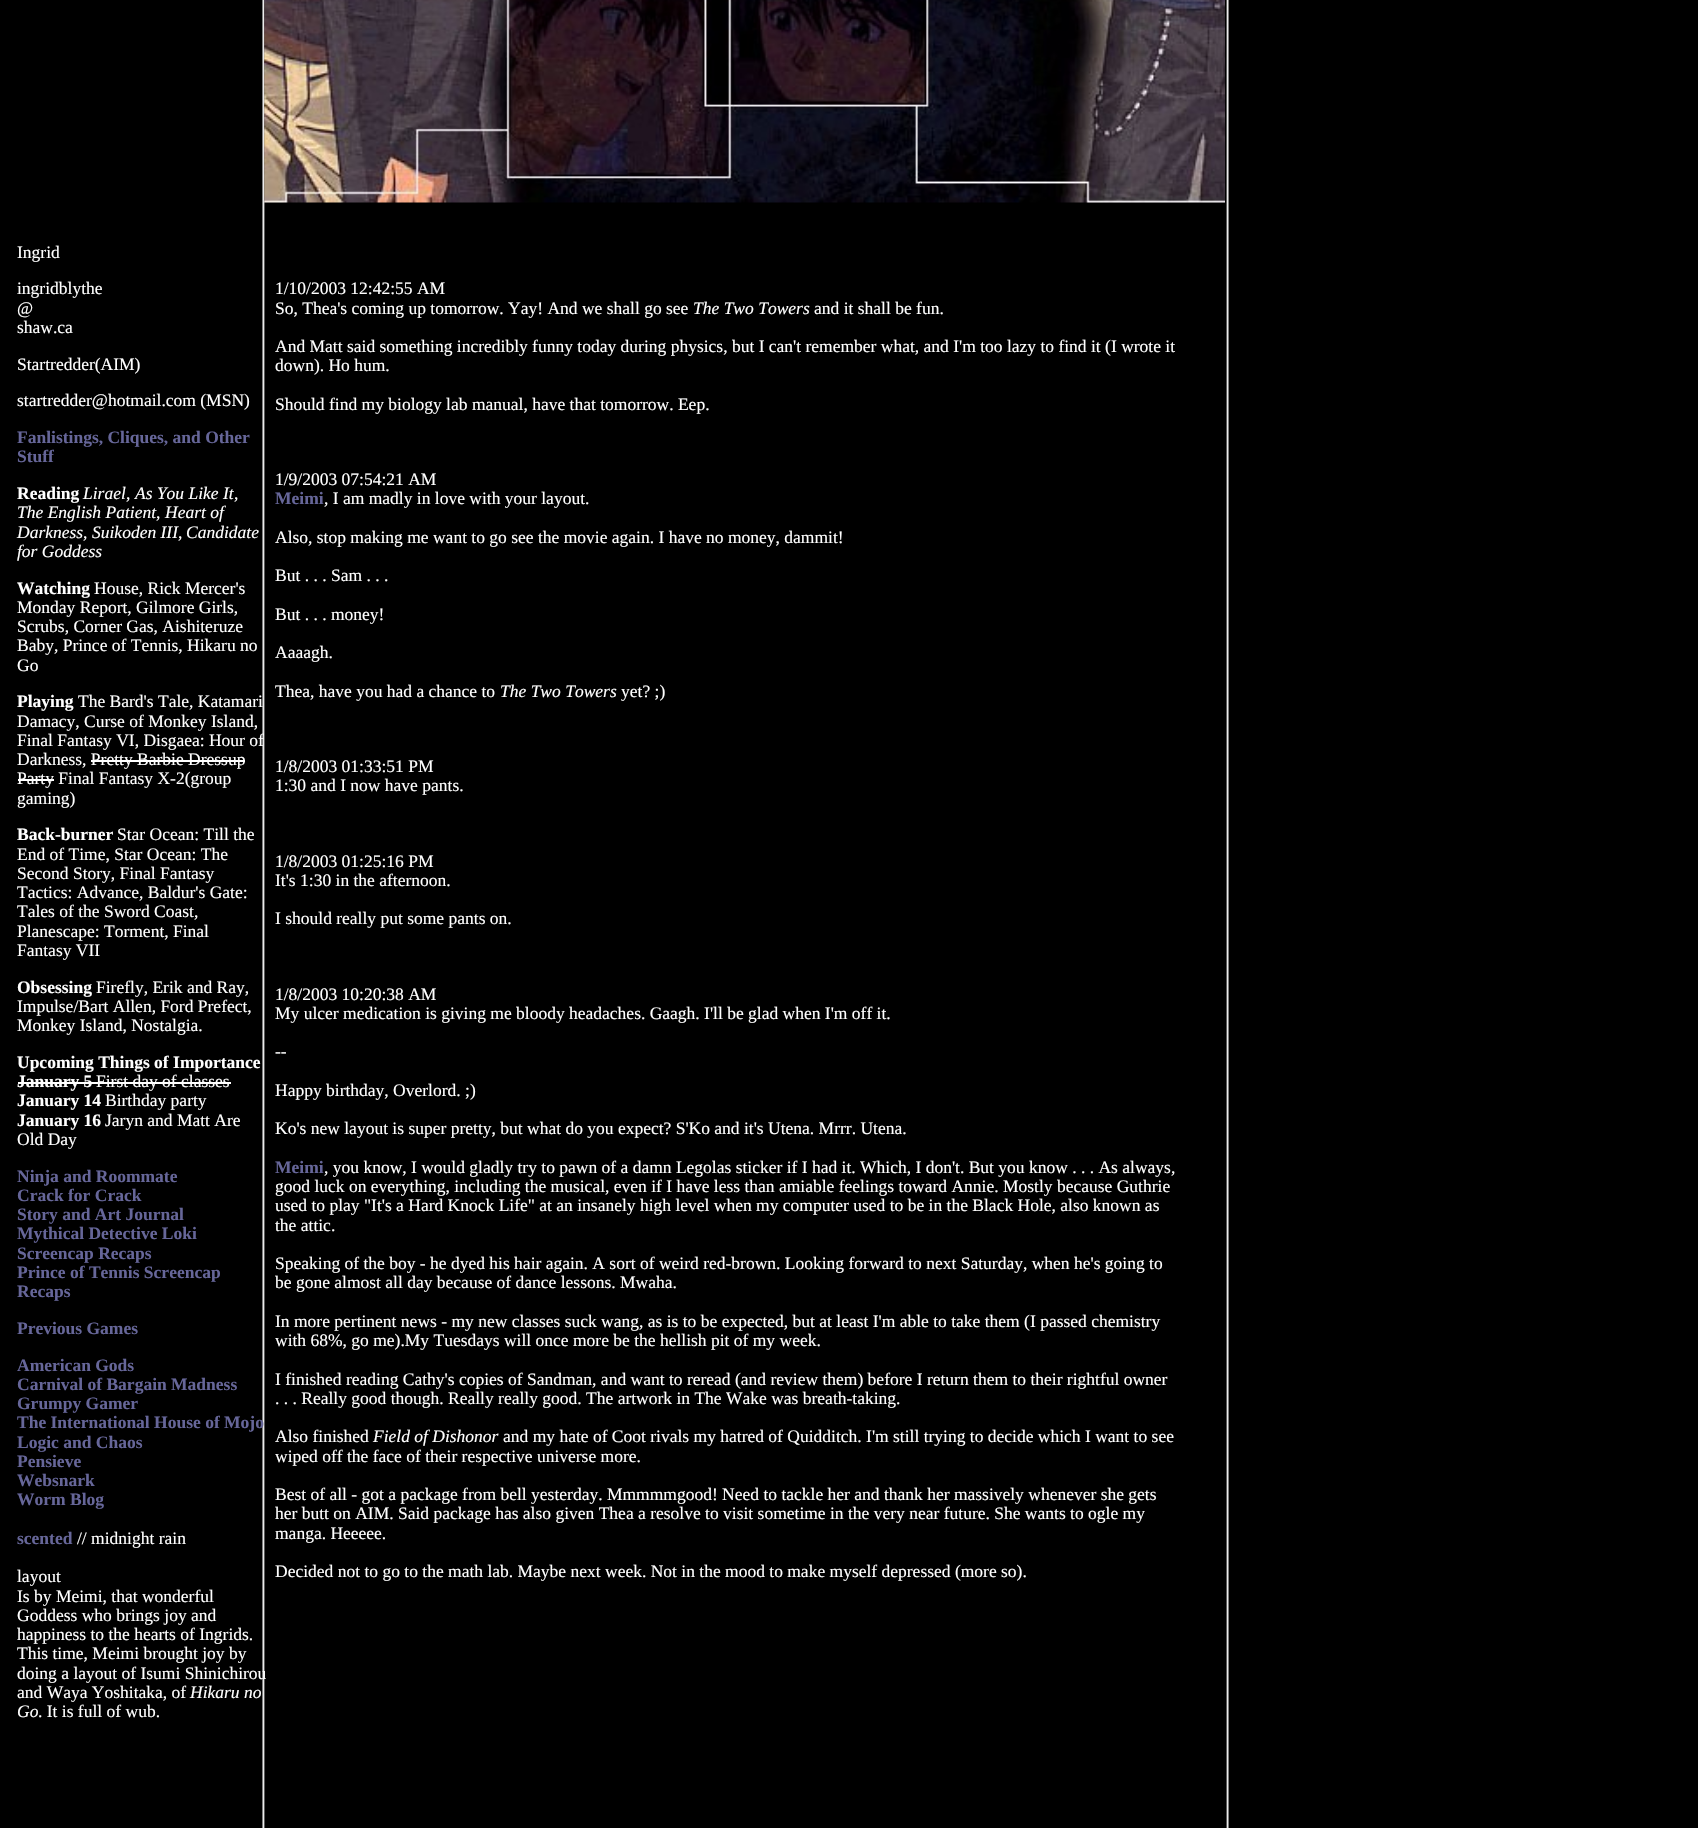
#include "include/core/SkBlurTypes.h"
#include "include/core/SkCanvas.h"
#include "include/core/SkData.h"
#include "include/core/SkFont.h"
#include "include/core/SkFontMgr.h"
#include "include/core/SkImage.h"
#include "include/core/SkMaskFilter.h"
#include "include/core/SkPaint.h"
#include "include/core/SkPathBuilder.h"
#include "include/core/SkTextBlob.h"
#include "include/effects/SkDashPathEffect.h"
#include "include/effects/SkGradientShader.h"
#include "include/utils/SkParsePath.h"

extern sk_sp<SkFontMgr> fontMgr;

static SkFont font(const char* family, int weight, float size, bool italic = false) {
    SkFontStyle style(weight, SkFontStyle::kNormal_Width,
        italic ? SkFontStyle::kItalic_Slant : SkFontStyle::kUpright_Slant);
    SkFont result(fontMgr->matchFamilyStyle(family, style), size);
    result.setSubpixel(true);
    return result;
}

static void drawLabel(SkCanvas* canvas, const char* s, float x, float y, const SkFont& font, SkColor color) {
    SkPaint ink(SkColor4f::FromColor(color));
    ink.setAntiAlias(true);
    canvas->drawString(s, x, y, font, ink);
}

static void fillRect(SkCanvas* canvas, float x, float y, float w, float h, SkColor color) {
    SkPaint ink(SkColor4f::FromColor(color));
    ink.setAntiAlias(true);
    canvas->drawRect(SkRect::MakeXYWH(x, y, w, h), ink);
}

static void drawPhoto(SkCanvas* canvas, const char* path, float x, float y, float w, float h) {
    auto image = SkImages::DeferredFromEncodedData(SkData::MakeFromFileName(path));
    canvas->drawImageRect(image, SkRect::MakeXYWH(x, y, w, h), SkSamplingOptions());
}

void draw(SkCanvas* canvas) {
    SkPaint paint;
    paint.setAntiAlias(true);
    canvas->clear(0xFF000000);
    drawPhoto(canvas, "assets/img1.png", 262, 0, 967, 1828);
    drawPhoto(canvas, "assets/img2.png", 264, 0, 961, 203);
    SkFont font1 = font("Liberation Serif", 400, 17.5f);
    drawLabel(canvas, "Ingrid", 17, 258, font1, 0xFFFFFFFF);
    drawLabel(canvas, "ingridblythe", 17, 294, font1, 0xFFFFFFFF);
    drawLabel(canvas, "@", 17, 314, font1, 0xFFFFFFFF);
    drawLabel(canvas, "shaw.ca", 17, 333, font1, 0xFFFFFFFF);
    drawLabel(canvas, "Startredder(AIM)", 17, 370, font1, 0xFFFFFFFF);
    drawLabel(canvas, "startredder@hotmail.com (MSN)", 17, 406, font1, 0xFFFFFFFF);
    SkFont font2 = font("Liberation Serif", 700, 17.5f);
    drawLabel(canvas, "Fanlistings, Cliques, and Other", 17, 443, font2, 0xFF666699);
    drawLabel(canvas, "Stuff", 17, 462, font2, 0xFF666699);
    drawLabel(canvas, "Reading", 17, 499, font2, 0xFFFFFFFF);
    SkFont font3 = font("Liberation Serif", 400, 17.5f, true);
    drawLabel(canvas, "Lirael", 83, 499, font3, 0xFFFFFFFF);
    drawLabel(canvas, ",", 126, 499, font1, 0xFFFFFFFF);
    drawLabel(canvas, "As You Like It", 135, 499, font3, 0xFFFFFFFF);
    drawLabel(canvas, ",", 234, 499, font1, 0xFFFFFFFF);
    drawLabel(canvas, "The English Patient", 17, 518, font3, 0xFFFFFFFF);
    drawLabel(canvas, ",", 156, 518, font1, 0xFFFFFFFF);
    drawLabel(canvas, "Heart of", 165, 518, font3, 0xFFFFFFFF);
    drawLabel(canvas, "Darkness", 17, 538, font3, 0xFFFFFFFF);
    drawLabel(canvas, ",", 83, 538, font1, 0xFFFFFFFF);
    drawLabel(canvas, "Suikoden III", 92, 538, font3, 0xFFFFFFFF);
    drawLabel(canvas, ",", 178, 538, font1, 0xFFFFFFFF);
    drawLabel(canvas, "Candidate", 186, 538, font3, 0xFFFFFFFF);
    drawLabel(canvas, "for Goddess", 17, 557, font3, 0xFFFFFFFF);
    drawLabel(canvas, "Watching", 17, 594, font2, 0xFFFFFFFF);
    drawLabel(canvas, "House, Rick Mercer's", 94, 594, font1, 0xFFFFFFFF);
    drawLabel(canvas, "Monday Report, Gilmore Girls,", 17, 613, font1, 0xFFFFFFFF);
    drawLabel(canvas, "Scrubs, Corner Gas, Aishiteruze", 17, 632, font1, 0xFFFFFFFF);
    drawLabel(canvas, "Baby, Prince of Tennis, Hikaru no", 17, 651, font1, 0xFFFFFFFF);
    drawLabel(canvas, "Go", 17, 671, font1, 0xFFFFFFFF);
    drawLabel(canvas, "Playing", 17, 707, font2, 0xFFFFFFFF);
    drawLabel(canvas, "The Bard's Tale, Katamari", 78, 707, font1, 0xFFFFFFFF);
    drawLabel(canvas, "Damacy, Curse of Monkey Island,", 17, 727, font1, 0xFFFFFFFF);
    drawLabel(canvas, "Final Fantasy VI, Disgaea: Hour of", 17, 746, font1, 0xFFFFFFFF);
    drawLabel(canvas, "Darkness, Pretty Barbie Dressup", 17, 765, font1, 0xFFFFFFFF);
    drawLabel(canvas, "Party Final Fantasy X-2(group", 17, 784, font1, 0xFFFFFFFF);
    fillRect(canvas, 91, 760, 154, 2, 0xFFFFFFFF);
    fillRect(canvas, 18, 779, 36, 2, 0xFFFFFFFF);
    drawLabel(canvas, "gaming)", 17, 804, font1, 0xFFFFFFFF);
    drawLabel(canvas, "Back-burner", 17, 840, font2, 0xFFFFFFFF);
    drawLabel(canvas, "Star Ocean: Till the", 117, 840, font1, 0xFFFFFFFF);
    drawLabel(canvas, "End of Time, Star Ocean: The", 17, 860, font1, 0xFFFFFFFF);
    drawLabel(canvas, "Second Story, Final Fantasy", 17, 879, font1, 0xFFFFFFFF);
    drawLabel(canvas, "Tactics: Advance, Baldur's Gate:", 17, 898, font1, 0xFFFFFFFF);
    drawLabel(canvas, "Tales of the Sword Coast,", 17, 917, font1, 0xFFFFFFFF);
    drawLabel(canvas, "Planescape: Torment, Final", 17, 937, font1, 0xFFFFFFFF);
    drawLabel(canvas, "Fantasy VII", 17, 956, font1, 0xFFFFFFFF);
    drawLabel(canvas, "Obsessing", 17, 993, font2, 0xFFFFFFFF);
    drawLabel(canvas, "Firefly, Erik and Ray,", 96, 993, font1, 0xFFFFFFFF);
    drawLabel(canvas, "Impulse/Bart Allen, Ford Prefect,", 17, 1012, font1, 0xFFFFFFFF);
    drawLabel(canvas, "Monkey Island, Nostalgia.", 17, 1031, font1, 0xFFFFFFFF);
    drawLabel(canvas, "Upcoming Things of Importance", 17, 1068, font2, 0xFFFFFFFF);
    drawLabel(canvas, "January 5", 17, 1087, font2, 0xFFFFFFFF);
    fillRect(canvas, 18, 1082, 75, 2, 0xFFFFFFFF);
    fillRect(canvas, 93, 1082, 138, 2, 0xFFFFFFFF);
    drawLabel(canvas, "First day of classes", 96, 1087, font1, 0xFFFFFFFF);
    drawLabel(canvas, "January 14", 17, 1106, font2, 0xFFFFFFFF);
    drawLabel(canvas, "Birthday party", 105, 1106, font1, 0xFFFFFFFF);
    drawLabel(canvas, "January 16", 17, 1126, font2, 0xFFFFFFFF);
    drawLabel(canvas, "Jaryn and Matt Are", 105, 1126, font1, 0xFFFFFFFF);
    drawLabel(canvas, "Old Day", 17, 1145, font1, 0xFFFFFFFF);
    drawLabel(canvas, "Ninja and Roommate", 17, 1182, font2, 0xFF666699);
    drawLabel(canvas, "Crack for Crack", 17, 1201, font2, 0xFF666699);
    drawLabel(canvas, "Story and Art Journal", 17, 1220, font2, 0xFF666699);
    drawLabel(canvas, "Mythical Detective Loki", 17, 1239, font2, 0xFF666699);
    drawLabel(canvas, "Screencap Recaps", 17, 1259, font2, 0xFF666699);
    drawLabel(canvas, "Prince of Tennis Screencap", 17, 1278, font2, 0xFF666699);
    drawLabel(canvas, "Recaps", 17, 1297, font2, 0xFF666699);
    drawLabel(canvas, "Previous Games", 17, 1334, font2, 0xFF666699);
    drawLabel(canvas, "American Gods", 17, 1371, font2, 0xFF666699);
    drawLabel(canvas, "Carnival of Bargain Madness", 17, 1390, font2, 0xFF666699);
    drawLabel(canvas, "Grumpy Gamer", 17, 1409, font2, 0xFF666699);
    drawLabel(canvas, "The International House of Mojo", 17, 1428, font2, 0xFF666699);
    drawLabel(canvas, "Logic and Chaos", 17, 1448, font2, 0xFF666699);
    drawLabel(canvas, "Pensieve", 17, 1467, font2, 0xFF666699);
    drawLabel(canvas, "Websnark", 17, 1486, font2, 0xFF666699);
    drawLabel(canvas, "Worm Blog", 17, 1505, font2, 0xFF666699);
    drawLabel(canvas, "scented", 17, 1544, font2, 0xFF666699);
    drawLabel(canvas, "// midnight rain", 77, 1544, font1, 0xFFFFFFFF);
    drawLabel(canvas, "layout", 17, 1582, font1, 0xFFFFFFFF);
    drawLabel(canvas, "Is by Meimi, that wonderful", 17, 1602, font1, 0xFFFFFFFF);
    drawLabel(canvas, "Goddess who brings joy and", 17, 1621, font1, 0xFFFFFFFF);
    drawLabel(canvas, "happiness to the hearts of Ingrids.", 17, 1640, font1, 0xFFFFFFFF);
    drawLabel(canvas, "This time, Meimi brought joy by", 17, 1659, font1, 0xFFFFFFFF);
    drawLabel(canvas, "doing a layout of Isumi Shinichirou", 17, 1679, font1, 0xFFFFFFFF);
    drawLabel(canvas, "and Waya Yoshitaka, of", 17, 1698, font1, 0xFFFFFFFF);
    drawLabel(canvas, "Hikaru no", 190, 1698, font3, 0xFFFFFFFF);
    drawLabel(canvas, "Go", 17, 1717, font3, 0xFFFFFFFF);
    drawLabel(canvas, ". It is full of wub.", 38, 1717, font1, 0xFFFFFFFF);
    drawLabel(canvas, "1/10/2003 12:42:55 AM", 275, 294, font1, 0xFFFFFFFF);
    drawLabel(canvas, "So, Thea's coming up tomorrow. Yay! And we shall go see", 275, 314, font1, 0xFFFFFFFF);
    drawLabel(canvas, "The Two Towers", 693, 314, font3, 0xFFFFFFFF);
    drawLabel(canvas, "and it shall be fun.", 814, 314, font1, 0xFFFFFFFF);
    drawLabel(canvas, "And Matt said something incredibly funny today during physics, but I can't remember what, and I'm too lazy to find it (I wrote it", 275, 352, font1, 0xFFFFFFFF);
    drawLabel(canvas, "down). Ho hum.", 275, 371, font1, 0xFFFFFFFF);
    drawLabel(canvas, "Should find my biology lab manual, have that tomorrow. Eep.", 275, 410, font1, 0xFFFFFFFF);
    drawLabel(canvas, "1/9/2003 07:54:21 AM", 275, 485, font1, 0xFFFFFFFF);
    drawLabel(canvas, "Meimi", 275, 504, font2, 0xFF666699);
    drawLabel(canvas, ", I am madly in love with your layout.", 324, 504, font1, 0xFFFFFFFF);
    drawLabel(canvas, "Also, stop making me want to go see the movie again. I have no money, dammit!", 275, 543, font1, 0xFFFFFFFF);
    drawLabel(canvas, "But . . . Sam . . .", 275, 581, font1, 0xFFFFFFFF);
    drawLabel(canvas, "But . . . money!", 275, 620, font1, 0xFFFFFFFF);
    drawLabel(canvas, "Aaaagh.", 275, 658, font1, 0xFFFFFFFF);
    drawLabel(canvas, "Thea, have you had a chance to", 275, 697, font1, 0xFFFFFFFF);
    drawLabel(canvas, "The Two Towers", 500, 697, font3, 0xFFFFFFFF);
    drawLabel(canvas, "yet? ;)", 621, 697, font1, 0xFFFFFFFF);
    drawLabel(canvas, "1/8/2003 01:33:51 PM", 275, 772, font1, 0xFFFFFFFF);
    drawLabel(canvas, "1:30 and I now have pants.", 275, 791, font1, 0xFFFFFFFF);
    drawLabel(canvas, "1/8/2003 01:25:16 PM", 275, 867, font1, 0xFFFFFFFF);
    drawLabel(canvas, "It's 1:30 in the afternoon.", 275, 886, font1, 0xFFFFFFFF);
    drawLabel(canvas, "I should really put some pants on.", 275, 924, font1, 0xFFFFFFFF);
    drawLabel(canvas, "1/8/2003 10:20:38 AM", 275, 1000, font1, 0xFFFFFFFF);
    drawLabel(canvas, "My ulcer medication is giving me bloody headaches. Gaagh. I'll be glad when I'm off it.", 275, 1019, font1, 0xFFFFFFFF);
    drawLabel(canvas, "--", 275, 1057, font1, 0xFFFFFFFF);
    drawLabel(canvas, "Happy birthday, Overlord. ;)", 275, 1096, font1, 0xFFFFFFFF);
    drawLabel(canvas, "Ko's new layout is super pretty, but what do you expect? S'Ko and it's Utena. Mrrr. Utena.", 275, 1134, font1, 0xFFFFFFFF);
    drawLabel(canvas, "Meimi", 275, 1173, font2, 0xFF666699);
    drawLabel(canvas, ", you know, I would gladly try to pawn of a damn Legolas sticker if I had it. Which, I don't. But you know . . . As always,", 324, 1173, font1, 0xFFFFFFFF);
    drawLabel(canvas, "good luck on everything, including the musical, even if I have less than amiable feelings toward Annie. Mostly because Guthrie", 275, 1192, font1, 0xFFFFFFFF);
    drawLabel(canvas, "used to play \"It's a Hard Knock Life\" at an insanely high level when my computer used to be in the Black Hole, also known as", 275, 1211, font1, 0xFFFFFFFF);
    drawLabel(canvas, "the attic.", 275, 1231, font1, 0xFFFFFFFF);
    drawLabel(canvas, "Speaking of the boy - he dyed his hair again. A sort of weird red-brown. Looking forward to next Saturday, when he's going to", 275, 1269, font1, 0xFFFFFFFF);
    drawLabel(canvas, "be gone almost all day because of dance lessons. Mwaha.", 275, 1288, font1, 0xFFFFFFFF);
    drawLabel(canvas, "In more pertinent news - my new classes suck wang, as is to be expected, but at least I'm able to take them (I passed chemistry", 275, 1327, font1, 0xFFFFFFFF);
    drawLabel(canvas, "with 68%, go me).My Tuesdays will once more be the hellish pit of my week.", 275, 1346, font1, 0xFFFFFFFF);
    drawLabel(canvas, "I finished reading Cathy's copies of Sandman, and want to reread (and review them) before I return them to their rightful owner", 275, 1385, font1, 0xFFFFFFFF);
    drawLabel(canvas, ". . . Really good though. Really really good. The artwork in The Wake was breath-taking.", 275, 1404, font1, 0xFFFFFFFF);
    drawLabel(canvas, "Also finished", 275, 1442, font1, 0xFFFFFFFF);
    drawLabel(canvas, "Field of Dishonor", 373, 1442, font3, 0xFFFFFFFF);
    drawLabel(canvas, "and my hate of Coot rivals my hatred of Quidditch. I'm still trying to decide which I want to see", 503, 1442, font1, 0xFFFFFFFF);
    drawLabel(canvas, "wiped off the face of their respective universe more.", 275, 1462, font1, 0xFFFFFFFF);
    drawLabel(canvas, "Best of all - got a package from bell yesterday. Mmmmmgood! Need to tackle her and thank her massively whenever she gets", 275, 1500, font1, 0xFFFFFFFF);
    drawLabel(canvas, "her butt on AIM. Said package has also given Thea a resolve to visit sometime in the very near future. She wants to ogle my", 275, 1519, font1, 0xFFFFFFFF);
    drawLabel(canvas, "manga. Heeeee.", 275, 1539, font1, 0xFFFFFFFF);
    drawLabel(canvas, "Decided not to go to the math lab. Maybe next week. Not in the mood to make myself depressed (more so).", 275, 1577, font1, 0xFFFFFFFF);
}
